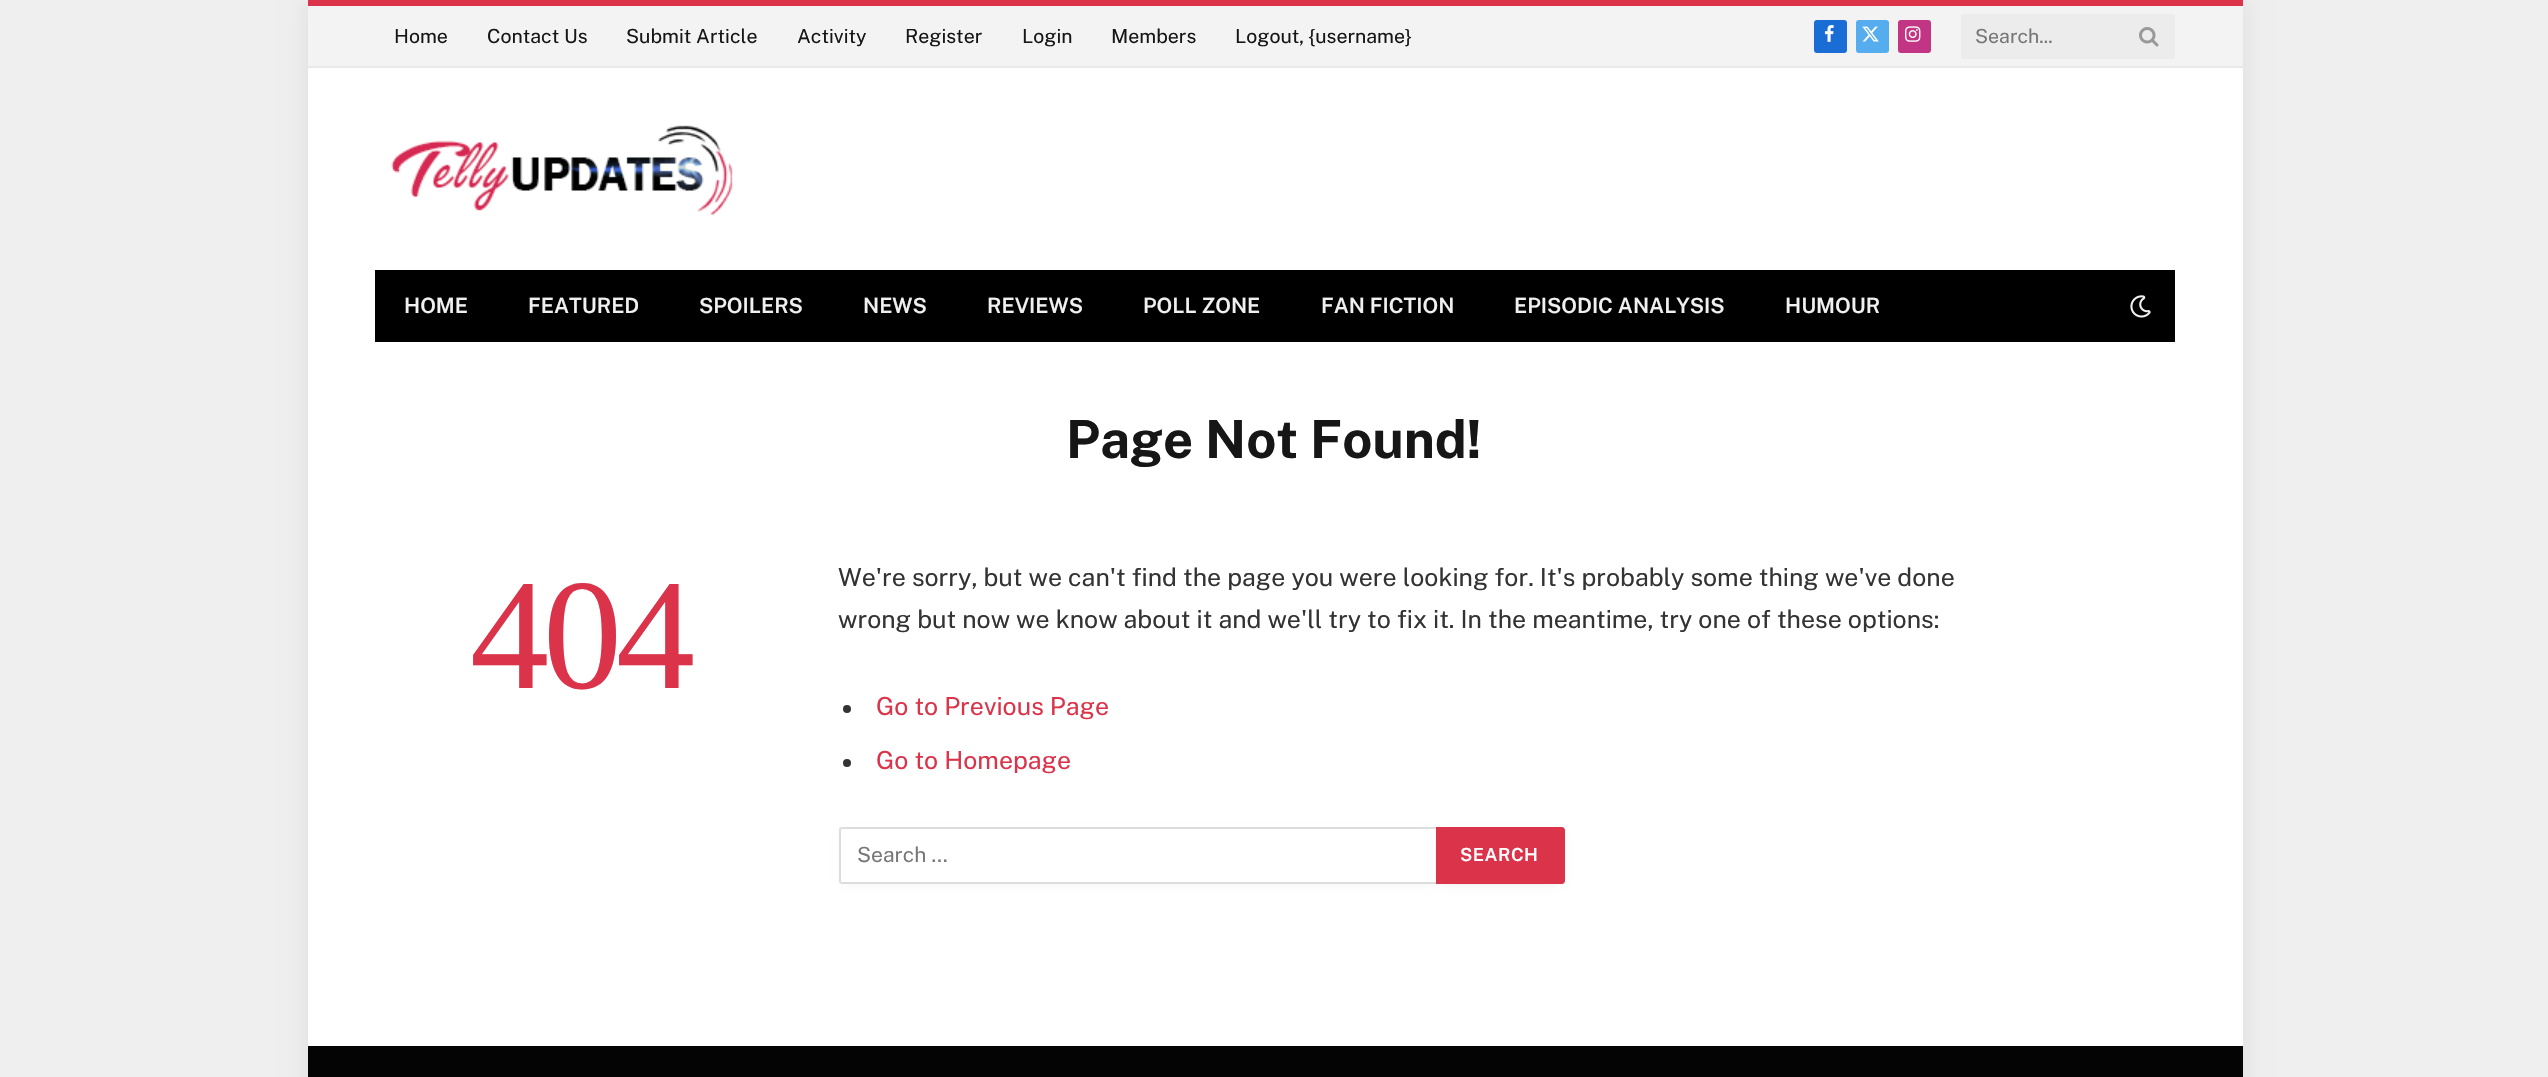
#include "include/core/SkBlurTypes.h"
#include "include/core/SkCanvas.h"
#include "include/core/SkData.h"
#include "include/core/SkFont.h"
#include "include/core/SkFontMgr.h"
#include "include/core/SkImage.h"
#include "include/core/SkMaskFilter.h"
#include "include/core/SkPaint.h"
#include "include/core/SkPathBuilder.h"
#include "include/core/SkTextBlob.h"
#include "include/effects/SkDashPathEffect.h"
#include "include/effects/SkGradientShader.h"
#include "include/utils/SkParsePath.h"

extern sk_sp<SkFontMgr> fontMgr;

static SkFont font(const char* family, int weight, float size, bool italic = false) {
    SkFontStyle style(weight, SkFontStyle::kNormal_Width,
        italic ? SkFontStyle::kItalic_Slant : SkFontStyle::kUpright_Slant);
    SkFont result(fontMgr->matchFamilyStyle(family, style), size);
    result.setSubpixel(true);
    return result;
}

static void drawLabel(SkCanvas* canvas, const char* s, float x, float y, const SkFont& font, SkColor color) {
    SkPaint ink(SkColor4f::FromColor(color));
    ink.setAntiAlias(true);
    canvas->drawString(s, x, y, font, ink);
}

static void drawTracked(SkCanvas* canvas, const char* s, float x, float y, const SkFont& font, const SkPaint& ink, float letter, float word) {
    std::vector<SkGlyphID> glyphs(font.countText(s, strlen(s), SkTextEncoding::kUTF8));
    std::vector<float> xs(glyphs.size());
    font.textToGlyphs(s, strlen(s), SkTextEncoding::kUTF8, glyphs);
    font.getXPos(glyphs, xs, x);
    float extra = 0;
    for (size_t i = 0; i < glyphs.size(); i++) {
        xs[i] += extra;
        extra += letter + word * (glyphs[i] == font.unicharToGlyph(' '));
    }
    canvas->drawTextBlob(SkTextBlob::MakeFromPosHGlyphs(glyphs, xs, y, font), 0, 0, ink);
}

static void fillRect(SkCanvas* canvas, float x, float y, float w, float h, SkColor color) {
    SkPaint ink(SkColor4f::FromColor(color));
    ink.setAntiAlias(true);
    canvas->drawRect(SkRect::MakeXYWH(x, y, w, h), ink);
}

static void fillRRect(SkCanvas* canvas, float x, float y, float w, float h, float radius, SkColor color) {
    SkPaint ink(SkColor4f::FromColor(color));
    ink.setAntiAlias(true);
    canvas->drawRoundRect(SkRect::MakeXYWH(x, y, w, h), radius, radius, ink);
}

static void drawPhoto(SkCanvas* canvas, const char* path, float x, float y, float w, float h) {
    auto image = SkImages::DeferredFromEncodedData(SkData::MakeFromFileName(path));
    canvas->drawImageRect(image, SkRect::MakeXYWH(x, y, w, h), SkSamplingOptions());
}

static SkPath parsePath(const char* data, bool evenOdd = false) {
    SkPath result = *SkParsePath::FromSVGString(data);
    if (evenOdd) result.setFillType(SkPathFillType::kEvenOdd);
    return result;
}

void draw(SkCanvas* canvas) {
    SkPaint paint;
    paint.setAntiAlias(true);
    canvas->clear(0xFFEFEFEF);
    paint.setColor(0x14000000);
    paint.setMaskFilter(SkMaskFilter::MakeBlur(kNormal_SkBlurStyle, 11));
    canvas->drawRect(SkRect::MakeXYWH(308, 0, 1935, 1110), paint);
    paint.setMaskFilter(nullptr);
    fillRect(canvas, 308, 68, 1935, 978, 0xFFFFFFFF);
    fillRect(canvas, 308, 6, 1935, 60, 0xFFF3F3F3);
    fillRect(canvas, 308, 0, 1935, 6, 0xFFDA334A);
    fillRect(canvas, 308, 66, 1935, 2, 0xFFE8E8E8);
    SkFont font1 = font("Public Sans", 400, 19.5f);
    drawLabel(canvas, "Home", 394, 43, font1, 0xFF161616);
    drawLabel(canvas, "Contact Us", 487, 43, font1, 0xFF161616);
    drawLabel(canvas, "Submit Article", 626, 43, font1, 0xFF161616);
    drawLabel(canvas, "Activity", 797, 43, font1, 0xFF161616);
    drawLabel(canvas, "Register", 905, 43, font1, 0xFF161616);
    drawLabel(canvas, "Login", 1022, 43, font1, 0xFF161616);
    drawLabel(canvas, "Members", 1111, 43, font1, 0xFF161616);
    drawLabel(canvas, "Logout, {username}", 1235, 43, font1, 0xFF161616);
    fillRRect(canvas, 1814, 20, 33, 33, 3, 0xFF1A6DD4);
    drawPhoto(canvas, "assets/img1.png", 1824, 25, 10, 17);
    fillRRect(canvas, 1856, 20, 33, 33, 3, 0xFF55ACEF);
    drawPhoto(canvas, "assets/img2.png", 1862, 26, 17, 16);
    fillRRect(canvas, 1898, 20, 33, 33, 3, 0xFFC13584);
    drawPhoto(canvas, "assets/img3.png", 1905, 26, 16, 16);
    fillRRect(canvas, 1961, 14, 214, 45, 3, 0xFFECECEC);
    drawLabel(canvas, "Search...", 1975, 43, font1, 0xFF777777);
    drawPhoto(canvas, "assets/img4.png", 2139, 27, 20, 20);
    drawPhoto(canvas, "assets/img5.png", 391, 125, 342, 90);
    fillRect(canvas, 375, 270, 1800, 72, 0xFF000000);
    SkFont font2 = font("Public Sans", 600, 21);
    drawLabel(canvas, "HOME", 404, 313, font2, 0xFFF0F0F0);
    drawLabel(canvas, "FEATURED", 528, 313, font2, 0xFFF0F0F0);
    drawLabel(canvas, "SPOILERS", 699, 313, font2, 0xFFF0F0F0);
    drawLabel(canvas, "NEWS", 863, 313, font2, 0xFFF0F0F0);
    drawLabel(canvas, "REVIEWS", 987, 313, font2, 0xFFF0F0F0);
    drawLabel(canvas, "POLL ZONE", 1143, 313, font2, 0xFFF0F0F0);
    drawLabel(canvas, "FAN FICTION", 1321, 313, font2, 0xFFF0F0F0);
    drawLabel(canvas, "EPISODIC ANALYSIS", 1514, 313, font2, 0xFFF0F0F0);
    drawLabel(canvas, "HUMOUR", 1785, 313, font2, 0xFFF0F0F0);
    drawPhoto(canvas, "assets/img6.png", 2130, 295, 21, 23);
    SkFont font3 = font("Public Sans", 700, 52.5f);
    drawLabel(canvas, "Page Not Found!", 1066, 458, font3, 0xFF161616);
    SkFont font4 = font("Liberation Serif", 400, 158);
    paint.setColor(0xFFDA334A);
    drawTracked(canvas, "404", 470, 688, font4, paint, -6, 0);
    SkFont font5 = font("Public Sans", 400, 24.9f);
    drawLabel(canvas, "We're sorry, but we can't find the page you were looking for. It's probably some thing we've done", 838, 586, font5, 0xFF333333);
    drawLabel(canvas, "wrong but now we know about it and we'll try to fix it. In the meantime, try one of these options:", 838, 628, font5, 0xFF333333);
    paint.setColor(0xFF333333);
    canvas->drawCircle(847, 709, 4, paint);
    drawLabel(canvas, "Go to Previous Page", 876, 715, font5, 0xFFDA334A);
    canvas->drawCircle(847, 763, 4, paint);
    drawLabel(canvas, "Go to Homepage", 876, 769, font5, 0xFFDA334A);
    paint.setColor(0x1A000000);
    paint.setMaskFilter(SkMaskFilter::MakeBlur(kNormal_SkBlurStyle, 5));
    canvas->drawRect(SkRect::MakeXYWH(845, 836, 588, 45), paint);
    paint.setMaskFilter(nullptr);
    paint.setColor(0xFFFFFFFF);
    canvas->drawRoundRect(SkRect::MakeXYWH(840, 828, 598, 55), 2, 2, paint);
    paint.setStroke(true);
    paint.setStrokeWidth(2);
    paint.setColor(0xFFDDDDDD);
    canvas->drawRoundRect(SkRect::MakeXYWH(840, 828, 598, 55), 2, 2, paint);
    SkFont font6 = font("Public Sans", 400, 21);
    drawLabel(canvas, "Search …", 857, 862, font6, 0xFF777777);
    paint.setStroke(false);
    paint.setColor(0x29000000);
    paint.setMaskFilter(SkMaskFilter::MakeBlur(kNormal_SkBlurStyle, 5));
    canvas->drawRect(SkRect::MakeXYWH(1442, 836, 117, 45), paint);
    paint.setMaskFilter(nullptr);
    paint.setColor(0xFFDA334A);
    canvas->drawPath(parsePath("M1436 827H1562C1563.5 827 1565 828.5 1565 830V881C1565 882.5 1563.5 884 1562 884H1436Z"), paint);
    SkFont font7 = font("Public Sans", 600, 18);
    paint.setColor(0xFFFFFFFF);
    drawTracked(canvas, "SEARCH", 1460, 861, font7, paint, 0.5f, 0);
    fillRect(canvas, 308, 1046, 1935, 31, 0xFF040404);
}
